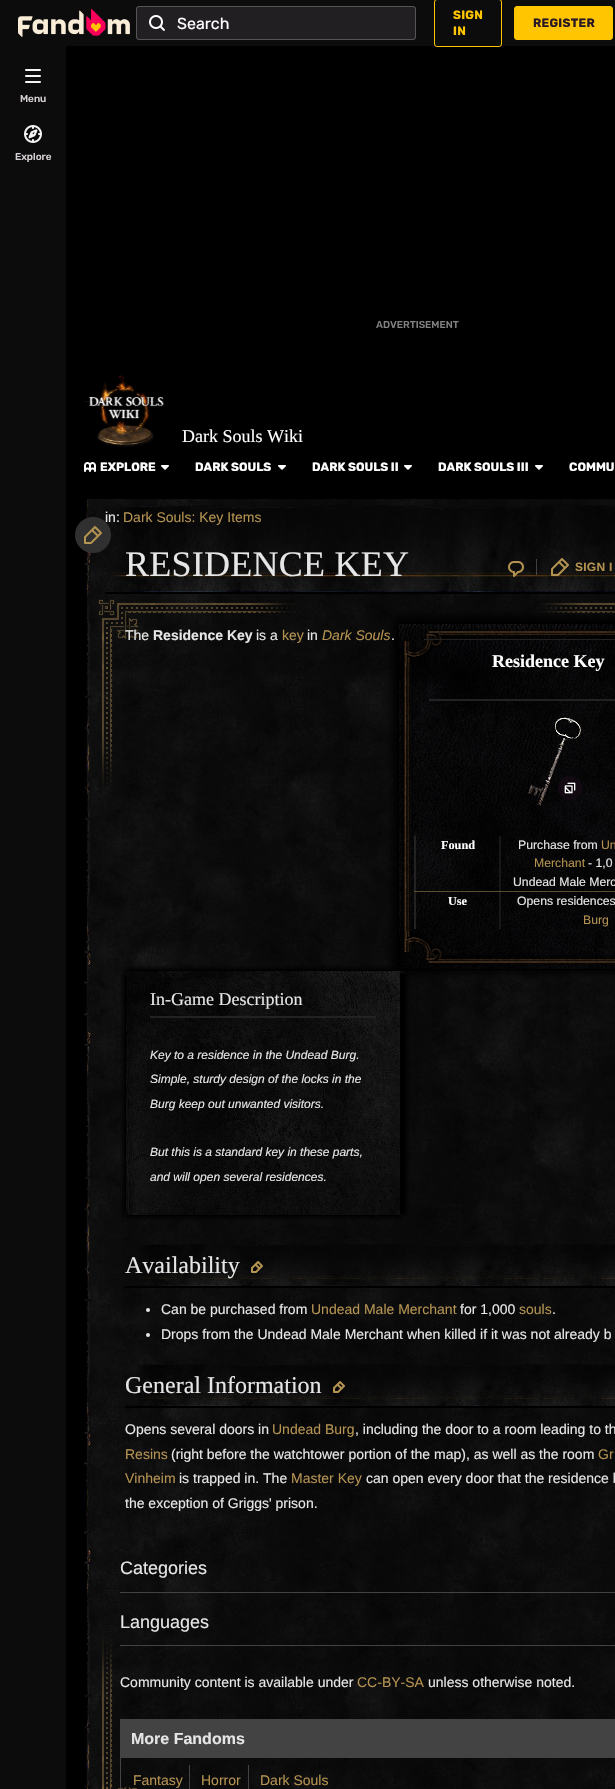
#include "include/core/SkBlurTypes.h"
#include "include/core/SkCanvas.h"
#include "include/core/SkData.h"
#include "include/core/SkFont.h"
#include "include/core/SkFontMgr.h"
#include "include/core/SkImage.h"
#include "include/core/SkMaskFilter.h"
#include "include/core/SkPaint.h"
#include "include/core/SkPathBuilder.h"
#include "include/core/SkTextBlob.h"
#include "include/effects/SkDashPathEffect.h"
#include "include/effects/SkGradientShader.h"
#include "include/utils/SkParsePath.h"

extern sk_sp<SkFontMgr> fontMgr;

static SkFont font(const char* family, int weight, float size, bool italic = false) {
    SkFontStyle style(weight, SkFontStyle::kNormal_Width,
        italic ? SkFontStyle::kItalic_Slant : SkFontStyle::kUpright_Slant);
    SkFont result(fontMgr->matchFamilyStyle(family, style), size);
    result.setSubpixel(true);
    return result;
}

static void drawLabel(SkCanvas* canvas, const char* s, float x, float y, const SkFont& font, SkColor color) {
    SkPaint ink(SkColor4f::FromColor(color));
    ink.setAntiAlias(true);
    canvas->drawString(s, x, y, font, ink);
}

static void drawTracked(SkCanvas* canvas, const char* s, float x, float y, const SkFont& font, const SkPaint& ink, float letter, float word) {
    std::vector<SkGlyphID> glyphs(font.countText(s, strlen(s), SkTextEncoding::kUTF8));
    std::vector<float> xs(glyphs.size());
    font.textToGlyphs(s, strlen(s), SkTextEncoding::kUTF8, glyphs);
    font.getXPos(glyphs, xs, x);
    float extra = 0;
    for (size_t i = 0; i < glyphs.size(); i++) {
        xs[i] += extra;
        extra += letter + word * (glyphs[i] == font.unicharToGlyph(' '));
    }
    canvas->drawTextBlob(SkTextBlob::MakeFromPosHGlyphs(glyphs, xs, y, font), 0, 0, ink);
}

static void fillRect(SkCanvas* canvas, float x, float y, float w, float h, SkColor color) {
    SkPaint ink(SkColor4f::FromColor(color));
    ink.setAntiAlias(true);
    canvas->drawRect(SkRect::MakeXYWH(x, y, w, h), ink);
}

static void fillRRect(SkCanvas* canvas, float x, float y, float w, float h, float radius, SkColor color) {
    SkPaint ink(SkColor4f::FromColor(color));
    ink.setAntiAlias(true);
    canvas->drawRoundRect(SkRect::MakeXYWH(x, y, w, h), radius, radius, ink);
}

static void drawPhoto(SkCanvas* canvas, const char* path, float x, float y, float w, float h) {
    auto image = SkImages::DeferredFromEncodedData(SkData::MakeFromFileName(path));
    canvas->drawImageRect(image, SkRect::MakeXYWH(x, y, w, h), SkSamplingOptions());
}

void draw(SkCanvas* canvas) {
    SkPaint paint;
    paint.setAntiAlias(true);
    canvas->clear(0xFF000000);
    fillRect(canvas, 0, 0, 615, 46, 0xFF0C0C0C);
    drawPhoto(canvas, "assets/img1.png", 18, 9, 112, 28);
    fillRRect(canvas, 136, 6, 280, 34, 3, 0xFF211F21);
    paint.setStroke(true);
    paint.setStrokeWidth(1);
    paint.setColor(0x40F5F3F5);
    canvas->drawRoundRect(SkRect::MakeXYWH(136.5f, 6.5f, 279, 33), 2.5f, 2.5f, paint);
    drawPhoto(canvas, "assets/img2.png", 149, 15, 16, 16);
    SkFont font1 = font("Rubik", 400, 16);
    drawLabel(canvas, "Search", 177, 29, font1, 0xFFFFFFFF);
    paint.setColor(0xFFFFC500);
    canvas->drawRoundRect(SkRect::MakeXYWH(434.5f, -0.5f, 67, 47), 2.5f, 2.5f, paint);
    SkFont font2 = font("Rubik", 700, 12);
    paint.setStroke(false);
    drawTracked(canvas, "SIGN", 453, 19, font2, paint, 0.25f, 0);
    drawTracked(canvas, "IN", 453, 35, font2, paint, 0.25f, 0);
    canvas->drawRoundRect(SkRect::MakeXYWH(514.5f, 6.5f, 98, 33), 2.5f, 2.5f, paint);
    paint.setStroke(true);
    canvas->drawRoundRect(SkRect::MakeXYWH(514.5f, 6.5f, 98, 33), 2.5f, 2.5f, paint);
    paint.setStroke(false);
    paint.setColor(0xFF291927);
    drawTracked(canvas, "REGISTER", 533, 27, font2, paint, 0.25f, 0);
    drawPhoto(canvas, "assets/img8.png", 84, 499, 531, 1290);
    drawPhoto(canvas, "assets/img10.png", 110, 505, 505, 87);
    paint.setColor(0x4D000000);
    paint.setMaskFilter(SkMaskFilter::MakeBlur(kNormal_SkBlurStyle, 6));
    canvas->drawRoundRect(SkRect::MakeXYWH(75, 520, 36, 36), 18, 18, paint);
    paint.setMaskFilter(nullptr);
    fillRect(canvas, 0, 46, 66, 1743, 0xFF0C0C0C);
    drawPhoto(canvas, "assets/img3.png", 25, 69, 16, 14);
    SkFont font3 = font("Rubik", 500, 10);
    drawLabel(canvas, "Menu", 20, 102, font3, 0xFFD6D0D5);
    drawPhoto(canvas, "assets/img4.png", 24, 125, 18, 18);
    drawLabel(canvas, "Explore", 15, 160, font3, 0xFFD6D0D5);
    drawLabel(canvas, "ADVERTISEMENT", 376, 328, font3, 0xFF838283);
    drawPhoto(canvas, "assets/img5.png", 84, 373, 80, 74);
    SkFont font4 = font("Liberation Serif", 400, 18);
    drawLabel(canvas, "Dark Souls Wiki", 182, 442, font4, 0xFFFFFFFF);
    drawPhoto(canvas, "assets/img6.png", 84, 462, 12, 10);
    drawLabel(canvas, "EXPLORE", 100, 471, font2, 0xFFFFFFFF);
    drawPhoto(canvas, "assets/img7.png", 161, 465, 8, 5);
    drawLabel(canvas, "DARK SOULS", 195, 471, font2, 0xFFFFFFFF);
    drawPhoto(canvas, "assets/img7.png", 278, 465, 8, 5);
    drawLabel(canvas, "DARK SOULS II", 312, 471, font2, 0xFFFFFFFF);
    drawPhoto(canvas, "assets/img7.png", 404, 465, 8, 5);
    drawLabel(canvas, "DARK SOULS III", 438, 471, font2, 0xFFFFFFFF);
    drawPhoto(canvas, "assets/img7.png", 535, 465, 8, 5);
    drawLabel(canvas, "COMMU", 569, 471, font2, 0xFFFFFFFF);
    SkFont font5 = font("Liberation Sans", 400, 14);
    drawLabel(canvas, "in:", 105, 522, font5, 0xFFE6E6E6);
    paint.setColor(0xFF303030);
    canvas->drawCircle(93, 535, 18, paint);
    drawPhoto(canvas, "assets/img9.png", 84, 526, 18, 18);
    fillRect(canvas, 105, 592, 510, 2, 0xFF000000);
    drawLabel(canvas, "Dark Souls: Key Items", 123, 522, font5, 0xFFB59351);
    SkFont font6 = font("Liberation Serif", 400, 36);
    paint.setColor(0xFFE6E6E6);
    drawTracked(canvas, "RESIDENCE KEY", 125, 576, font6, paint, 0.25f, 0);
    drawPhoto(canvas, "assets/img11.png", 508, 561, 16, 16);
    fillRect(canvas, 536, 559, 1, 16, 0x40E6E6E6);
    drawPhoto(canvas, "assets/img12.png", 551, 558, 18, 18);
    SkFont font7 = font("Liberation Sans", 700, 12);
    paint.setColor(0xFFB59351);
    drawTracked(canvas, "SIGN I", 575, 571, font7, paint, 0.25f, 0);
    drawLabel(canvas, "The", 125, 640, font5, 0xFFE6E6E6);
    SkFont font8 = font("Liberation Sans", 700, 14);
    drawLabel(canvas, "Residence Key", 153, 640, font8, 0xFFE6E6E6);
    drawLabel(canvas, "is a", 256, 640, font5, 0xFFE6E6E6);
    drawLabel(canvas, "key", 282, 640, font5, 0xFFB59351);
    drawLabel(canvas, "in", 307, 640, font5, 0xFFE6E6E6);
    paint.setColor(0xFF000000);
    paint.setMaskFilter(SkMaskFilter::MakeBlur(kNormal_SkBlurStyle, 4));
    canvas->drawRoundRect(SkRect::MakeXYWH(393, 616, 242, 357), 8, 8, paint);
    paint.setMaskFilter(nullptr);
    SkFont font9 = font("Liberation Sans", 400, 14, true);
    drawLabel(canvas, "Dark Souls", 322, 640, font9, 0xFFB59351);
    drawLabel(canvas, ".", 391, 640, font5, 0xFFE6E6E6);
    drawPhoto(canvas, "assets/img13.png", 398, 623, 217, 347);
    paint.setStroke(true);
    canvas->drawRoundRect(SkRect::MakeXYWH(398.5f, 623.5f, 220, 346), 2.5f, 2.5f, paint);
    fillRect(canvas, 424, 639, 191, 1, 0xFF222222);
    SkFont font10 = font("Liberation Serif", 700, 18);
    drawLabel(canvas, "Residence Key", 492, 667, font10, 0xFFFFFFFF);
    fillRect(canvas, 429, 699, 186, 2, 0xFF222222);
    drawPhoto(canvas, "assets/img14.png", 528, 717, 54, 89);
    paint.setStroke(false);
    paint.setColor(0x801E0C1B);
    canvas->drawCircle(570, 788, 12, paint);
    drawPhoto(canvas, "assets/img15.png", 564, 782, 12, 12);
    fillRect(canvas, 499, 836, 2, 55, 0xFF171717);
    fillRect(canvas, 414, 836, 2, 55, 0xFF222222);
    SkFont font11 = font("Liberation Serif", 700, 12.25f);
    drawLabel(canvas, "Found", 441, 849, font11, 0xFFFFFFFF);
    SkFont font12 = font("Liberation Sans", 400, 12.25f);
    drawLabel(canvas, "Purchase from", 518, 849, font12, 0xFFE6E6E6);
    drawLabel(canvas, "Un", 601, 849, font12, 0xFFB59351);
    drawLabel(canvas, "Merchant", 534, 867, font12, 0xFFB59351);
    drawLabel(canvas, "- 1,0", 588, 867, font12, 0xFFE6E6E6);
    drawLabel(canvas, "Undead Male Merc", 513, 886, font12, 0xFFE6E6E6);
    fillRect(canvas, 414, 891, 201, 1, 0x80B59351);
    fillRect(canvas, 499, 892, 2, 37, 0xFF171717);
    fillRect(canvas, 414, 892, 2, 37, 0xFF222222);
    drawLabel(canvas, "Use", 448, 905, font11, 0xFFFFFFFF);
    drawLabel(canvas, "Opens residences", 517, 905, font12, 0xFFE6E6E6);
    drawLabel(canvas, "Burg", 583, 924, font12, 0xFFB59351);
    canvas->save();
    canvas->clipRect(SkRect::MakeXYWH(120, 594, 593, 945));
    paint.setColor(0xFF000000);
    paint.setMaskFilter(SkMaskFilter::MakeBlur(kNormal_SkBlurStyle, 2.5f));
    canvas->drawRoundRect(SkRect::MakeXYWH(123, 968, 284, 250), 7, 7, paint);
    paint.setMaskFilter(nullptr);
    canvas->restore();
    drawPhoto(canvas, "assets/img16.png", 125, 970, 280, 246);
    paint.setStroke(true);
    canvas->drawRoundRect(SkRect::MakeXYWH(125.5f, 970.5f, 279, 245), 4.5f, 4.5f, paint);
    fillRect(canvas, 400, 973, 4, 241, 0xFF000000);
    fillRect(canvas, 150, 1016, 226, 2, 0xFF222222);
    drawLabel(canvas, "In-Game Description", 150, 1005, font4, 0xFFE6E6E6);
    SkFont font13 = font("Liberation Sans", 400, 12, true);
    drawLabel(canvas, "Key to a residence in the Undead Burg.", 150, 1059, font13, 0xFFE6E6E6);
    drawLabel(canvas, "Simple, sturdy design of the locks in the", 150, 1083, font13, 0xFFE6E6E6);
    drawLabel(canvas, "Burg keep out unwanted visitors.", 150, 1108, font13, 0xFFE6E6E6);
    drawLabel(canvas, "But this is a standard key in these parts,", 150, 1156, font13, 0xFFE6E6E6);
    drawLabel(canvas, "and will open several residences.", 150, 1181, font13, 0xFFE6E6E6);
    drawPhoto(canvas, "assets/img17.png", 137, 1244, 478, 42);
    fillRect(canvas, 125, 1286, 490, 2, 0xFF000000);
    SkFont font14 = font("Liberation Serif", 400, 24);
    drawLabel(canvas, "Availability", 125, 1273, font14, 0xFFE6E6E6);
    drawPhoto(canvas, "assets/img18.png", 251, 1261, 12, 12);
    paint.setStroke(false);
    paint.setColor(0xFFE6E6E6);
    canvas->drawCircle(148, 1310, 2, paint);
    drawLabel(canvas, "Can be purchased from", 161, 1314, font5, 0xFFE6E6E6);
    drawLabel(canvas, "Undead Male Merchant", 311, 1314, font5, 0xFFB59351);
    drawLabel(canvas, "for 1,000", 460, 1314, font5, 0xFFE6E6E6);
    drawLabel(canvas, "souls", 519, 1314, font5, 0xFFB59351);
    drawLabel(canvas, ".", 552, 1314, font5, 0xFFE6E6E6);
    canvas->drawCircle(148, 1335, 2, paint);
    drawLabel(canvas, "Drops from the Undead Male Merchant when killed if it was not already b", 161, 1339, font5, 0xFFE6E6E6);
    drawPhoto(canvas, "assets/img19.png", 137, 1364, 478, 42);
    fillRect(canvas, 125, 1406, 490, 2, 0xFF000000);
    drawLabel(canvas, "General Information", 125, 1393, font14, 0xFFE6E6E6);
    drawPhoto(canvas, "assets/img20.png", 333, 1381, 12, 12);
    drawLabel(canvas, "Opens several doors in", 125, 1434, font5, 0xFFE6E6E6);
    drawLabel(canvas, "Undead Burg", 272, 1434, font5, 0xFFB59351);
    drawLabel(canvas, ", including the door to a room leading to th", 355, 1434, font5, 0xFFE6E6E6);
    drawLabel(canvas, "Resins", 125, 1459, font5, 0xFFB59351);
    drawLabel(canvas, "(right before the watchtower portion of the map), as well as the room", 171, 1459, font5, 0xFFE6E6E6);
    drawLabel(canvas, "Gr", 598, 1459, font5, 0xFFB59351);
    drawLabel(canvas, "Vinheim", 125, 1483, font5, 0xFFB59351);
    drawLabel(canvas, "is trapped in. The", 179, 1483, font5, 0xFFE6E6E6);
    drawLabel(canvas, "Master Key", 291, 1483, font5, 0xFFB59351);
    drawLabel(canvas, "can open every door that the residence k", 366, 1483, font5, 0xFFE6E6E6);
    drawLabel(canvas, "the exception of Griggs' prison.", 125, 1508, font5, 0xFFE6E6E6);
    fillRect(canvas, 120, 1592, 495, 1, 0xFF434343);
    SkFont font15 = font("Liberation Sans", 400, 18);
    drawLabel(canvas, "Categories", 120, 1574, font15, 0xFFE6E6E6);
    fillRect(canvas, 120, 1645, 495, 1, 0xFF434343);
    drawLabel(canvas, "Languages", 120, 1628, font15, 0xFFE6E6E6);
    drawLabel(canvas, "Community content is available under", 120, 1687, font5, 0xFFE6E6E6);
    drawLabel(canvas, "CC-BY-SA", 357, 1687, font5, 0xFFB59351);
    drawLabel(canvas, "unless otherwise noted.", 428, 1687, font5, 0xFFE6E6E6);
    paint.setStroke(true);
    paint.setColor(0xFF434343);
    canvas->drawRect(SkRect::MakeXYWH(120.5f, 1719.5f, 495, 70), paint);
    fillRect(canvas, 121, 1720, 494, 38, 0xFF434343);
    SkFont font16 = font("Liberation Sans", 700, 16);
    drawLabel(canvas, "More Fandoms", 131, 1744, font16, 0xFFE6E6E6);
    drawLabel(canvas, "Fantasy", 133, 1785, font5, 0xFFB59351);
    fillRect(canvas, 189, 1765, 1, 24, 0xFF434343);
    drawLabel(canvas, "Horror", 201, 1785, font5, 0xFFB59351);
    fillRect(canvas, 248, 1765, 1, 24, 0xFF434343);
    drawLabel(canvas, "Dark Souls", 260, 1785, font5, 0xFFB59351);
}
